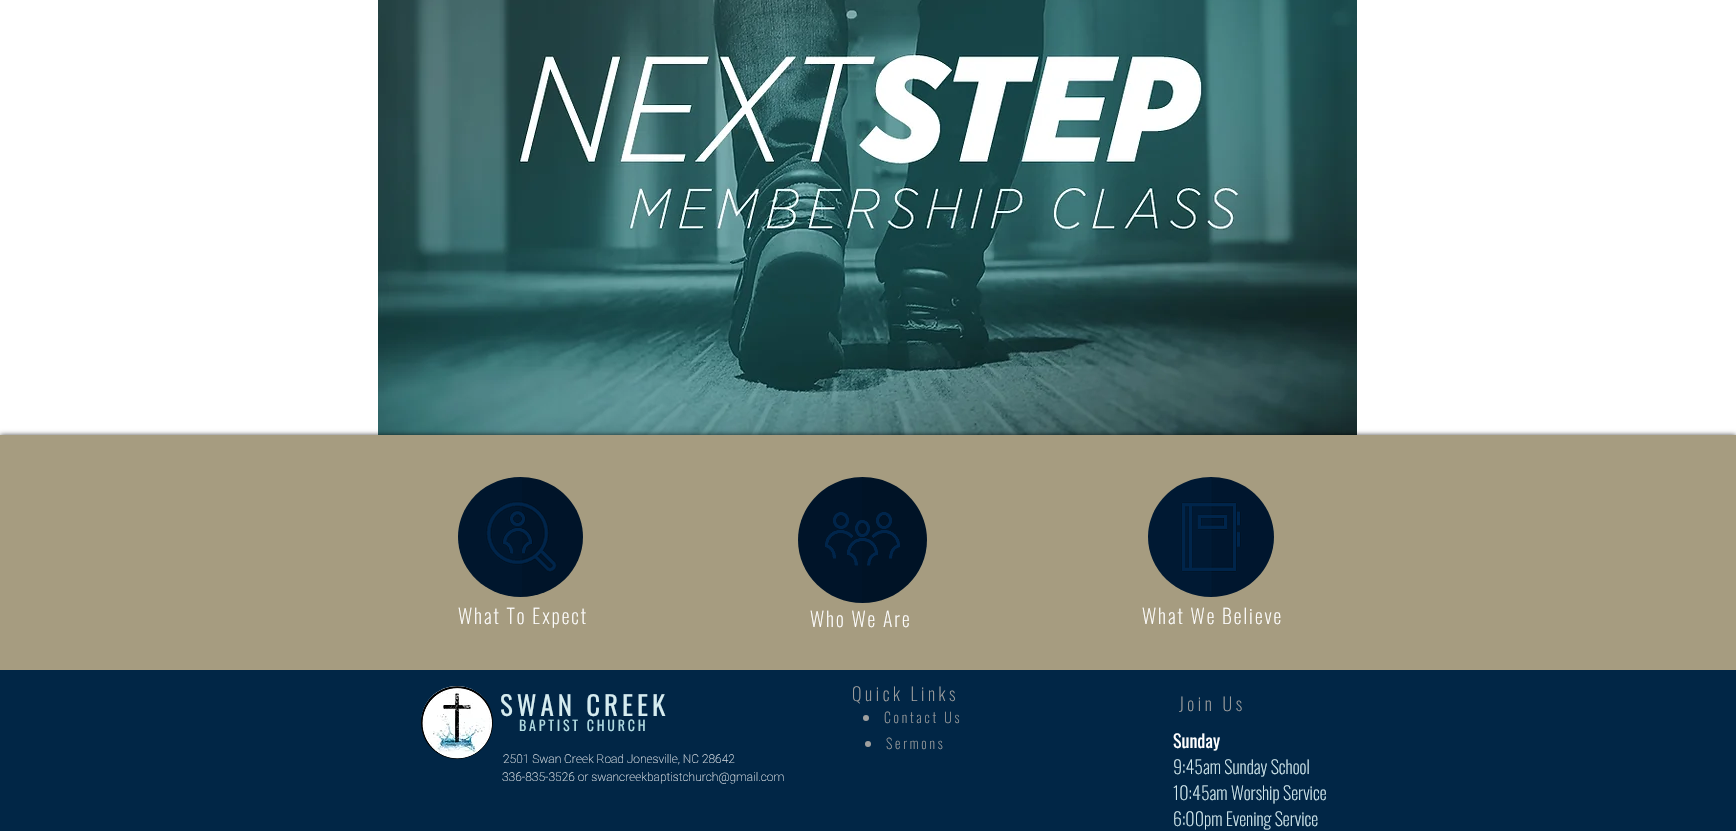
#include "include/core/SkBlurTypes.h"
#include "include/core/SkCanvas.h"
#include "include/core/SkData.h"
#include "include/core/SkFont.h"
#include "include/core/SkFontMgr.h"
#include "include/core/SkImage.h"
#include "include/core/SkMaskFilter.h"
#include "include/core/SkPaint.h"
#include "include/core/SkPathBuilder.h"
#include "include/core/SkTextBlob.h"
#include "include/effects/SkDashPathEffect.h"
#include "include/effects/SkGradientShader.h"
#include "include/utils/SkParsePath.h"

extern sk_sp<SkFontMgr> fontMgr;

static SkFont font(const char* family, int weight, float size, bool italic = false) {
    SkFontStyle style(weight, SkFontStyle::kNormal_Width,
        italic ? SkFontStyle::kItalic_Slant : SkFontStyle::kUpright_Slant);
    SkFont result(fontMgr->matchFamilyStyle(family, style), size);
    result.setSubpixel(true);
    return result;
}

static void drawLabel(SkCanvas* canvas, const char* s, float x, float y, const SkFont& font, SkColor color) {
    SkPaint ink(SkColor4f::FromColor(color));
    ink.setAntiAlias(true);
    canvas->drawString(s, x, y, font, ink);
}

static void drawTracked(SkCanvas* canvas, const char* s, float x, float y, const SkFont& font, const SkPaint& ink, float letter, float word) {
    std::vector<SkGlyphID> glyphs(font.countText(s, strlen(s), SkTextEncoding::kUTF8));
    std::vector<float> xs(glyphs.size());
    font.textToGlyphs(s, strlen(s), SkTextEncoding::kUTF8, glyphs);
    font.getXPos(glyphs, xs, x);
    float extra = 0;
    for (size_t i = 0; i < glyphs.size(); i++) {
        xs[i] += extra;
        extra += letter + word * (glyphs[i] == font.unicharToGlyph(' '));
    }
    canvas->drawTextBlob(SkTextBlob::MakeFromPosHGlyphs(glyphs, xs, y, font), 0, 0, ink);
}

static void fillRect(SkCanvas* canvas, float x, float y, float w, float h, SkColor color) {
    SkPaint ink(SkColor4f::FromColor(color));
    ink.setAntiAlias(true);
    canvas->drawRect(SkRect::MakeXYWH(x, y, w, h), ink);
}

static void drawPhoto(SkCanvas* canvas, const char* path, float x, float y, float w, float h) {
    auto image = SkImages::DeferredFromEncodedData(SkData::MakeFromFileName(path));
    canvas->drawImageRect(image, SkRect::MakeXYWH(x, y, w, h), SkSamplingOptions());
}

void draw(SkCanvas* canvas) {
    SkPaint paint;
    paint.setAntiAlias(true);
    canvas->clear(0xFFFFFFFF);
    drawPhoto(canvas, "assets/img1.png", 378, 0, 979, 435);
    paint.setColor(0xB3000000);
    paint.setMaskFilter(SkMaskFilter::MakeBlur(kNormal_SkBlurStyle, 2.5f));
    canvas->drawRect(SkRect::MakeXYWH(0, 435, 1736, 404), paint);
    paint.setMaskFilter(nullptr);
    fillRect(canvas, 0, 670, 1736, 161, 0xFF012646);
    fillRect(canvas, 0, 435, 1736, 235, 0xFFA69C80);
    drawPhoto(canvas, "assets/img2.png", 458, 477, 125, 120);
    drawPhoto(canvas, "assets/img3.png", 1148, 477, 126, 120);
    SkFont font1 = font("Oswald", 200, 20);
    paint.setColor(0xFFFFFFFF);
    drawTracked(canvas, "What To Expect", 458, 624, font1, paint, 2, 0);
    drawPhoto(canvas, "assets/img4.png", 798, 477, 129, 126);
    drawTracked(canvas, "Who We Are", 810, 627, font1, paint, 2, 0);
    drawTracked(canvas, "What We Believe", 1142, 624, font1, paint, 2, 0);
    drawPhoto(canvas, "assets/img5.png", 421, 686, 72, 73);
    SkFont font2 = font("Oswald", 400, 27);
    paint.setColor(0xFFD6ECF0);
    drawTracked(canvas, "SWAN CREEK", 500, 716, font2, paint, 4, 0);
    SkFont font3 = font("Oswald", 400, 14);
    paint.setColor(0xFFB0DAE1);
    drawTracked(canvas, "BAPTIST CHURCH", 519, 731, font3, paint, 2.75f, 0);
    SkFont font4 = font("Oswald", 200, 18);
    paint.setColor(0xFFA0A09F);
    drawTracked(canvas, "Quick Links", 852, 701, font4, paint, 3.6f, 0);
    drawTracked(canvas, "Join Us", 1179, 711, font4, paint, 3.6f, 0);
    canvas->drawCircle(866, 718, 3, paint);
    SkFont font5 = font("Oswald", 200, 14);
    drawTracked(canvas, "Contact Us", 884, 723, font5, paint, 2.75f, 0);
    canvas->drawCircle(868, 744, 3, paint);
    drawTracked(canvas, "Sermons", 886, 749, font5, paint, 2.75f, 0);
    SkFont font6 = font("Oswald", 400, 18);
    drawLabel(canvas, "Sunday", 1173, 748, font6, 0xFFFFFFFF);
    drawLabel(canvas, "9:45am Sunday School", 1173, 774, font4, 0xFFD6ECF0);
    drawLabel(canvas, "10:45am Worship Service", 1173, 800, font4, 0xFFD6ECF0);
    drawLabel(canvas, "6:00pm Evening Service", 1173, 826, font4, 0xFFD6ECF0);
    SkFont font7 = font("Roboto", 100, 12);
    drawLabel(canvas, "2501 Swan Creek Road Jonesville, NC 28642", 503, 763, font7, 0xFFFFFFFF);
    drawLabel(canvas, "336-835-3526 or swancreekbaptistchurch@gmail.com", 502, 781, font7, 0xFFFFFFFF);
}
